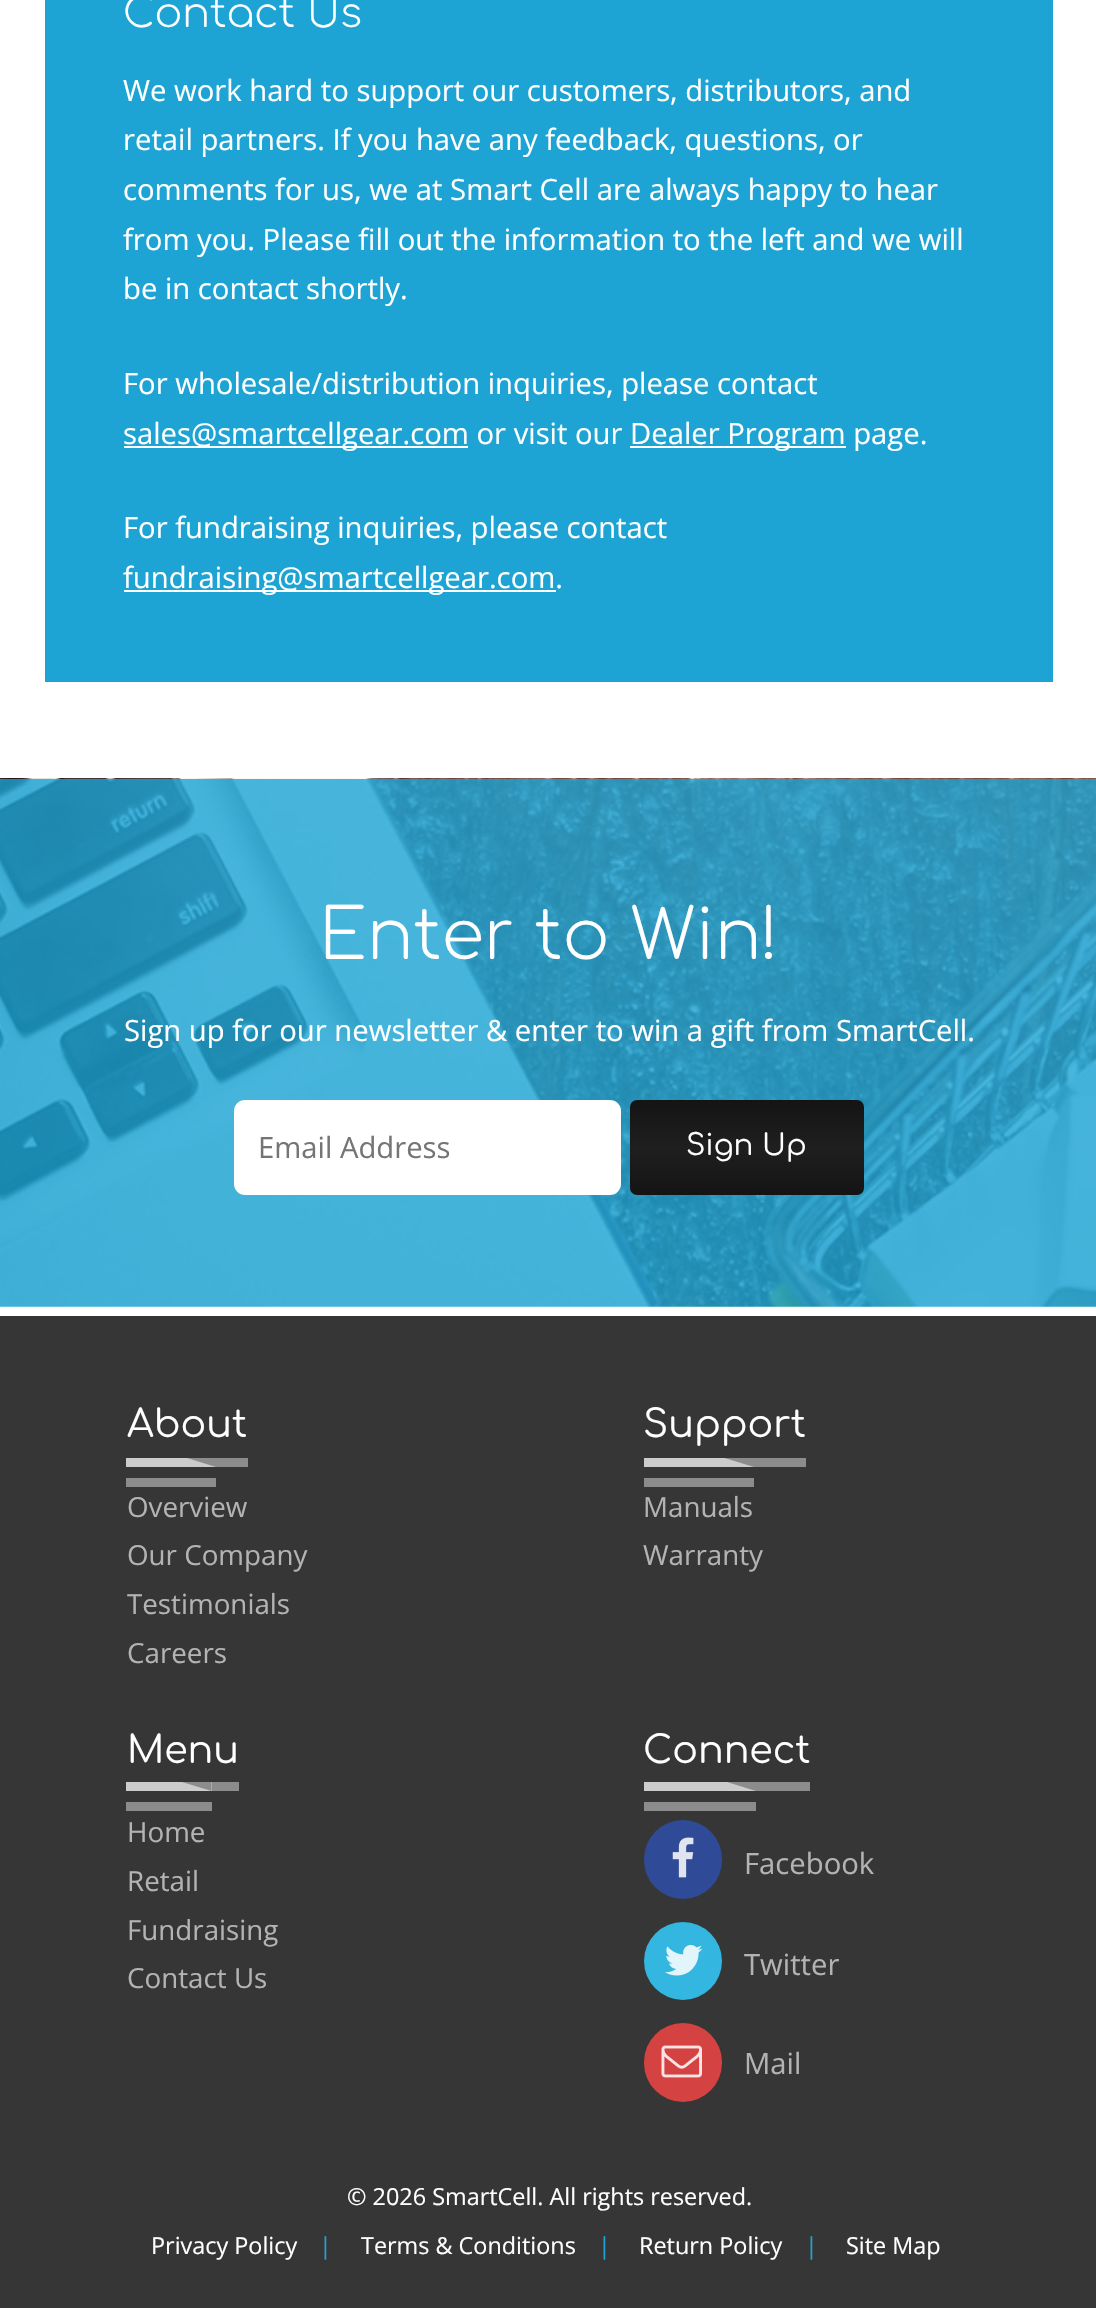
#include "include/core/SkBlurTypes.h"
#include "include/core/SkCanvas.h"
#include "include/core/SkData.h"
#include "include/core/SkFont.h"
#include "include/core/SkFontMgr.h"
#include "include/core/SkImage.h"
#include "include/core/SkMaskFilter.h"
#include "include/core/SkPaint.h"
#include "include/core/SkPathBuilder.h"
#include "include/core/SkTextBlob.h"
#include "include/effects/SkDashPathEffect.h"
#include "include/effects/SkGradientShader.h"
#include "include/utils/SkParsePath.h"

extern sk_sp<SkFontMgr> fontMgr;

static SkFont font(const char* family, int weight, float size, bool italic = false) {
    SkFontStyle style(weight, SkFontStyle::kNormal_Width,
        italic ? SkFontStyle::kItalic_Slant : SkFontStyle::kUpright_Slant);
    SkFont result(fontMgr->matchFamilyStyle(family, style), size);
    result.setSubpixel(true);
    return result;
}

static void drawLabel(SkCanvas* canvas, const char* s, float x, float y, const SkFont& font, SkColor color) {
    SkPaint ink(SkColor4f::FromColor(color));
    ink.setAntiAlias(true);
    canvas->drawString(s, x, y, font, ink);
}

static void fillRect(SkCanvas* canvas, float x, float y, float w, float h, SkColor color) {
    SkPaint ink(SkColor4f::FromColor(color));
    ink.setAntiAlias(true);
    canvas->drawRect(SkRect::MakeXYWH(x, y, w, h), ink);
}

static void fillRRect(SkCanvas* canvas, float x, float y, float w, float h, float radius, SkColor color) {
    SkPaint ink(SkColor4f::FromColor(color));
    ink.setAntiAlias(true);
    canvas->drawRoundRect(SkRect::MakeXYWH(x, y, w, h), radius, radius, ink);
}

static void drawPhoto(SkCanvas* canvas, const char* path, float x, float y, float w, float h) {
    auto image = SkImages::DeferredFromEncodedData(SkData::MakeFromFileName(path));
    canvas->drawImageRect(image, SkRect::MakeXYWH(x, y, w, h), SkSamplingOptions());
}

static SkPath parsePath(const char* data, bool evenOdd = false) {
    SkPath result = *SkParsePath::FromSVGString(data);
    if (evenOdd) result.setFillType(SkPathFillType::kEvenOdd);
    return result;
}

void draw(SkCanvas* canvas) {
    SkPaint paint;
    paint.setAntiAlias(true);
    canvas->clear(0xFFFFFFFF);
    fillRect(canvas, 45, 0, 1008, 682, 0xFF1DA4D4);
    SkFont font1 = font("Comfortaa", 300, 41);
    drawLabel(canvas, "Contact Us", 123, 27, font1, 0xFFFFFFFF);
    SkFont font2 = font("Open Sans", 400, 29.25f);
    drawLabel(canvas, "We work hard to support our customers, distributors, and", 123, 101, font2, 0xFFFFFFFF);
    drawLabel(canvas, "retail partners. If you have any feedback, questions, or", 123, 150, font2, 0xFFFFFFFF);
    drawLabel(canvas, "comments for us, we at Smart Cell are always happy to hear", 123, 200, font2, 0xFFFFFFFF);
    drawLabel(canvas, "from you. Please fill out the information to the left and we will", 123, 250, font2, 0xFFFFFFFF);
    drawLabel(canvas, "be in contact shortly.", 123, 299, font2, 0xFFFFFFFF);
    drawLabel(canvas, "For wholesale/distribution inquiries, please contact", 123, 394, font2, 0xFFFFFFFF);
    fillRect(canvas, 124, 446, 344, 2, 0xFFFFFFFF);
    drawLabel(canvas, "sales@smartcellgear.com or visit our", 123, 444, font2, 0xFFFFFFFF);
    fillRect(canvas, 630, 446, 216, 2, 0xFFFFFFFF);
    drawLabel(canvas, "Dealer Program page.", 630, 444, font2, 0xFFFFFFFF);
    drawLabel(canvas, "For fundraising inquiries, please contact", 123, 538, font2, 0xFFFFFFFF);
    fillRect(canvas, 124, 590, 432, 2, 0xFFFFFFFF);
    drawLabel(canvas, "fundraising@smartcellgear.com.", 123, 588, font2, 0xFFFFFFFF);
    drawPhoto(canvas, "assets/img1.png", 0, 778, 1096, 529);
    SkFont font3 = font("Comfortaa", 300, 69.5f);
    drawLabel(canvas, "Enter to Win!", 319, 959, font3, 0xFFFFFFFF);
    drawLabel(canvas, "Sign up for our newsletter & enter to win a gift from SmartCell.", 124, 1041, font2, 0xFFFFFFFF);
    fillRRect(canvas, 234, 1100, 387, 95, 11, 0xFFFFFFFF);
    drawLabel(canvas, "Email Address", 258, 1158, font2, 0xFF757575);
    {
        const SkColor colors[] = {0xFF141414, 0xFF1F1F1F, 0xFF141414};
        const float stops[] = {0, 0.5f, 1};
        const SkPoint ends[] = {{747, 1100}, {747, 1195}};
        paint.setShader(SkGradientShader::MakeLinear(ends, colors, stops, 3, SkTileMode::kClamp));
        paint.setAlpha(255);
    }
    canvas->drawRoundRect(SkRect::MakeXYWH(630, 1100, 234, 95), 7, 7, paint);
    SkFont font4 = font("Comfortaa", 400, 29.25f);
    drawLabel(canvas, "Sign Up", 686, 1155, font4, 0xFFFFFFFF);
    fillRect(canvas, 0, 1316, 1096, 992, 0xFF363636);
    fillRect(canvas, 216, 1458, 32, 9, 0xFF8C8C8C);
    fillRect(canvas, 126, 1478, 90, 9, 0xFF8C8C8C);
    SkFont font5 = font("Comfortaa", 400, 38);
    drawLabel(canvas, "About", 127, 1437, font5, 0xFFFFFFFF);
    fillRect(canvas, 126, 1458, 90, 9, 0xFFCCCCCC);
    paint.setShader(nullptr);
    paint.setColor(0xFF8C8C8C);
    canvas->drawPath(parsePath("M216 1458V1467L187 1458Z"), paint);
    SkFont font6 = font("Open Sans", 400, 27.75f);
    drawLabel(canvas, "Overview", 127, 1517, font6, 0xFFB3B3B3);
    drawLabel(canvas, "Our Company", 127, 1565, font6, 0xFFB3B3B3);
    drawLabel(canvas, "Testimonials", 127, 1614, font6, 0xFFB3B3B3);
    drawLabel(canvas, "Careers", 127, 1663, font6, 0xFFB3B3B3);
    fillRect(canvas, 754, 1458, 52, 9, 0xFF8C8C8C);
    fillRect(canvas, 644, 1478, 110, 9, 0xFF8C8C8C);
    drawLabel(canvas, "Support", 643, 1437, font5, 0xFFFFFFFF);
    fillRect(canvas, 644, 1458, 110, 9, 0xFFCCCCCC);
    canvas->drawPath(parsePath("M754 1458V1467L724.5 1458Z"), paint);
    drawLabel(canvas, "Manuals", 643, 1517, font6, 0xFFB3B3B3);
    drawLabel(canvas, "Warranty", 643, 1565, font6, 0xFFB3B3B3);
    fillRect(canvas, 212, 1782, 27, 9, 0xFF8C8C8C);
    fillRect(canvas, 126, 1802, 86, 9, 0xFF8C8C8C);
    drawLabel(canvas, "Menu", 127, 1763, font5, 0xFFFFFFFF);
    fillRect(canvas, 126, 1782, 86, 9, 0xFFCCCCCC);
    canvas->drawPath(parsePath("M211.5 1782V1791L182 1782Z"), paint);
    drawLabel(canvas, "Home", 127, 1842, font6, 0xFFB3B3B3);
    drawLabel(canvas, "Retail", 127, 1891, font6, 0xFFB3B3B3);
    drawLabel(canvas, "Fundraising", 127, 1940, font6, 0xFFB3B3B3);
    drawLabel(canvas, "Contact Us", 127, 1988, font6, 0xFFB3B3B3);
    fillRect(canvas, 756, 1782, 54, 9, 0xFF8C8C8C);
    fillRect(canvas, 644, 1802, 112, 9, 0xFF8C8C8C);
    drawLabel(canvas, "Connect", 643, 1763, font5, 0xFFFFFFFF);
    fillRect(canvas, 644, 1782, 112, 9, 0xFFCCCCCC);
    canvas->drawPath(parsePath("M756 1782V1791L727 1782Z"), paint);
    fillRRect(canvas, 644, 1820, 78, 79, 39, 0xFF2F4A96);
    drawPhoto(canvas, "assets/img2.png", 672, 1837, 22, 41);
    drawLabel(canvas, "Facebook", 744, 1874, font2, 0xFFB3B3B3);
    paint.setColor(0xFF33B6E0);
    canvas->drawCircle(683, 1961, 39, paint);
    drawPhoto(canvas, "assets/img3.png", 665, 1945, 38, 31);
    drawLabel(canvas, "Twitter", 744, 1975, font2, 0xFFB3B3B3);
    fillRRect(canvas, 644, 2023, 78, 79, 39, 0xFFD44241);
    drawPhoto(canvas, "assets/img4.png", 661, 2045, 41, 33);
    drawLabel(canvas, "Mail", 744, 2074, font2, 0xFFB3B3B3);
    SkFont font7 = font("Open Sans", 400, 23.4f);
    drawLabel(canvas, "© 2026 SmartCell. All rights reserved.", 347, 2205, font7, 0xFFFFFFFF);
    drawLabel(canvas, "Privacy Policy", 151, 2254, font7, 0xFFFFFFFF);
    drawLabel(canvas, "|", 319, 2254, font7, 0xFF1DA4D4);
    drawLabel(canvas, "Terms & Conditions", 361, 2254, font7, 0xFFFFFFFF);
    drawLabel(canvas, "|", 598, 2254, font7, 0xFF1DA4D4);
    drawLabel(canvas, "Return Policy", 639, 2254, font7, 0xFFFFFFFF);
    drawLabel(canvas, "|", 805, 2254, font7, 0xFF1DA4D4);
    drawLabel(canvas, "Site Map", 846, 2254, font7, 0xFFFFFFFF);
}
